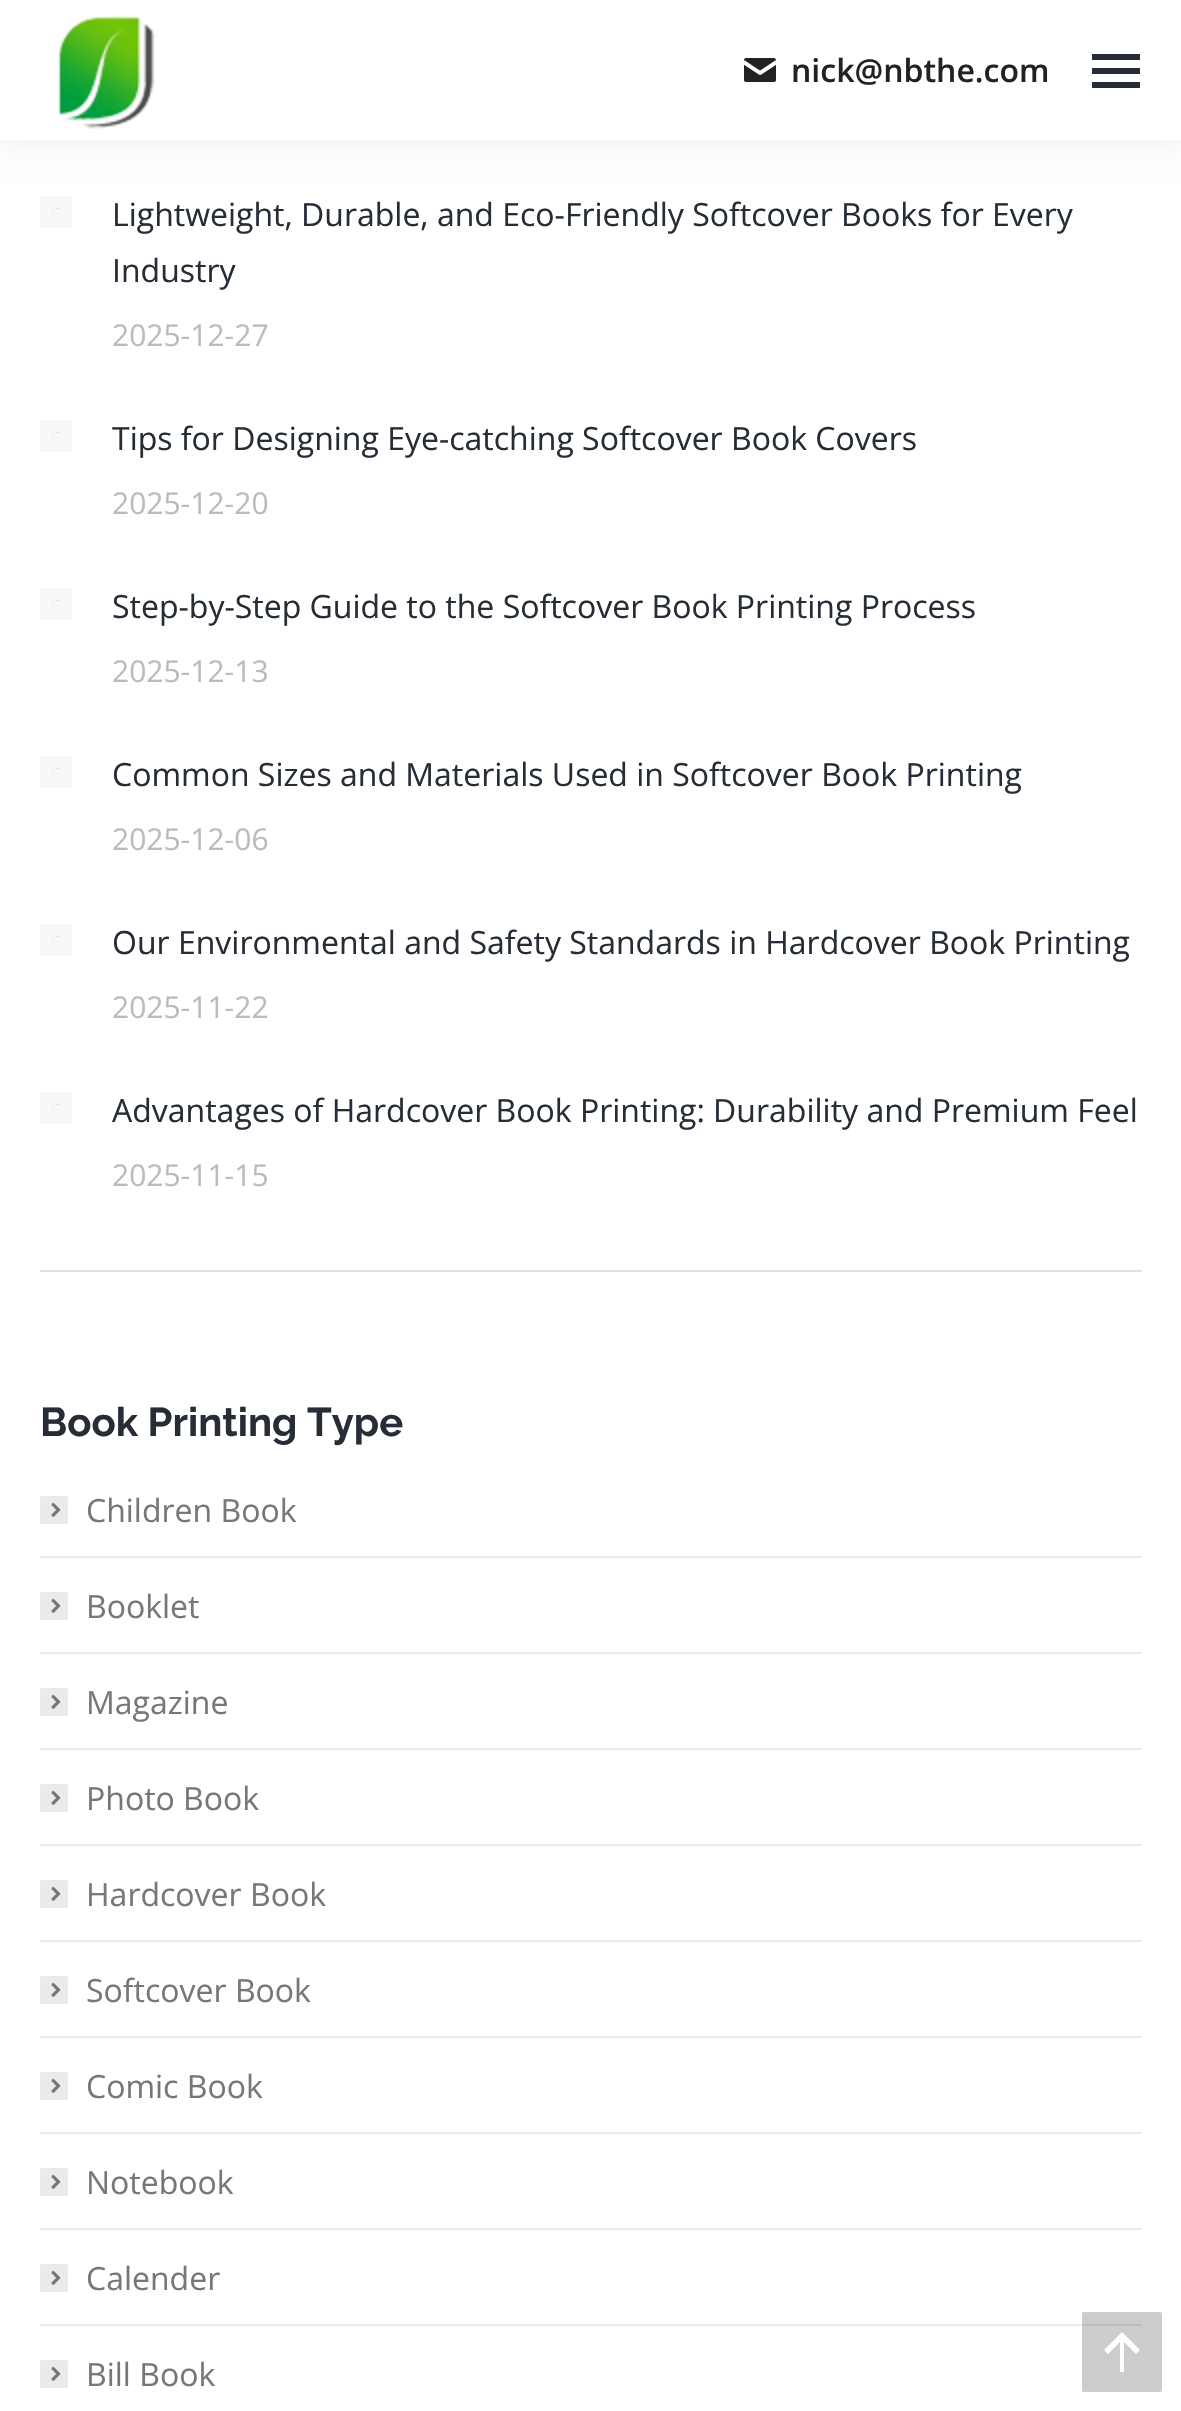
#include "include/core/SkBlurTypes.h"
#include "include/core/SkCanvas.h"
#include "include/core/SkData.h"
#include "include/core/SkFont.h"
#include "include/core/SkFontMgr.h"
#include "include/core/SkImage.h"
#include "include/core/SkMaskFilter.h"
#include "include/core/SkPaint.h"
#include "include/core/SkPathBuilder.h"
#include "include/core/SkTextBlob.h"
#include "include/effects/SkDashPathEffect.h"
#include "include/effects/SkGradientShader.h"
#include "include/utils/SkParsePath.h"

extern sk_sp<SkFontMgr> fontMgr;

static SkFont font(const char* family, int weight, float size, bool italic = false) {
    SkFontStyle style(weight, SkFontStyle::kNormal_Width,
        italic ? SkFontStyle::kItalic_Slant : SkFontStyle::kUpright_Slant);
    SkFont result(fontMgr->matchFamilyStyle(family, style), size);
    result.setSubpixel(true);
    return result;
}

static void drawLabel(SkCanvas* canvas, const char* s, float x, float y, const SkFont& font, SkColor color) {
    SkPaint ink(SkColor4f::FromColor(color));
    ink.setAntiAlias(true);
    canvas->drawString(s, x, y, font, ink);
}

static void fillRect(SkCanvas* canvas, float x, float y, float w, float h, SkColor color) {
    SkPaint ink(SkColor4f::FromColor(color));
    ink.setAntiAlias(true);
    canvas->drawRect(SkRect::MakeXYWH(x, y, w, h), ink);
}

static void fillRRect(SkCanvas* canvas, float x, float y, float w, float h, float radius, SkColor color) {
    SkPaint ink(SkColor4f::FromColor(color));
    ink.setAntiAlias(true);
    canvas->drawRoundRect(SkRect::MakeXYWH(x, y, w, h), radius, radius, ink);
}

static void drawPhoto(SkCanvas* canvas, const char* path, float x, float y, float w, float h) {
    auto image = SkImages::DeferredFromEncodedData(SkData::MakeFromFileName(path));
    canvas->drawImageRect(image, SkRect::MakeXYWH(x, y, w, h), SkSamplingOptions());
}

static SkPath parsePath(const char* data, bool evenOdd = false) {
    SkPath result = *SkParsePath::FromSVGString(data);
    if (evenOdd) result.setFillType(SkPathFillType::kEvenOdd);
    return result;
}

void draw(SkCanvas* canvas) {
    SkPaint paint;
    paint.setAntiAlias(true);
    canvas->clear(0xFFFFFFFF);
    paint.setColor(0x12000000);
    paint.setMaskFilter(SkMaskFilter::MakeBlur(kNormal_SkBlurStyle, 15));
    canvas->drawRect(SkRect::MakeXYWH(-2, -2, 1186, 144), paint);
    paint.setMaskFilter(nullptr);
    fillRect(canvas, 0, 0, 1181, 140, 0xFFFFFFFF);
    drawPhoto(canvas, "assets/img1.png", 57, 15, 98, 114);
    drawPhoto(canvas, "assets/img2.png", 744, 58, 32, 24);
    SkFont font1 = font("Open Sans", 600, 32);
    drawLabel(canvas, "nick@nbthe.com", 791, 82, font1, 0xFF222222);
    fillRect(canvas, 1092, 54, 48, 6, 0xFF262D37);
    fillRect(canvas, 1092, 68, 48, 6, 0xFF262D37);
    fillRect(canvas, 1092, 82, 48, 6, 0xFF262D37);
    fillRect(canvas, 40, 1270, 1102, 2, 0xFFE2E2E2);
    fillRect(canvas, 40, 196, 32, 32, 0xFFF8F8F8);
    drawPhoto(canvas, "assets/img3.png", 52, 208, 8, 8);
    SkFont font2 = font("Open Sans", 400, 32);
    drawLabel(canvas, "Lightweight, Durable, and Eco-Friendly Softcover Books for Every", 112, 226, font2, 0xFF262D37);
    drawLabel(canvas, "Industry", 112, 282, font2, 0xFF262D37);
    SkFont font3 = font("Open Sans", 400, 30);
    drawLabel(canvas, "2025-12-27", 112, 346, font3, 0xFFBBBBBB);
    fillRect(canvas, 40, 420, 32, 32, 0xFFF8F8F8);
    drawPhoto(canvas, "assets/img3.png", 52, 432, 8, 8);
    drawLabel(canvas, "Tips for Designing Eye-catching Softcover Book Covers", 112, 450, font2, 0xFF262D37);
    drawLabel(canvas, "2025-12-20", 112, 514, font3, 0xFFBBBBBB);
    fillRect(canvas, 40, 588, 32, 32, 0xFFF8F8F8);
    drawPhoto(canvas, "assets/img3.png", 52, 600, 8, 8);
    drawLabel(canvas, "Step-by-Step Guide to the Softcover Book Printing Process", 112, 618, font2, 0xFF262D37);
    drawLabel(canvas, "2025-12-13", 112, 682, font3, 0xFFBBBBBB);
    fillRect(canvas, 40, 756, 32, 32, 0xFFF8F8F8);
    drawPhoto(canvas, "assets/img3.png", 52, 768, 8, 8);
    drawLabel(canvas, "Common Sizes and Materials Used in Softcover Book Printing", 112, 786, font2, 0xFF262D37);
    drawLabel(canvas, "2025-12-06", 112, 850, font3, 0xFFBBBBBB);
    fillRect(canvas, 40, 924, 32, 32, 0xFFF8F8F8);
    drawPhoto(canvas, "assets/img3.png", 52, 936, 8, 8);
    drawLabel(canvas, "Our Environmental and Safety Standards in Hardcover Book Printing", 112, 954, font2, 0xFF262D37);
    drawLabel(canvas, "2025-11-22", 112, 1018, font3, 0xFFBBBBBB);
    fillRect(canvas, 40, 1092, 32, 32, 0xFFF8F8F8);
    drawPhoto(canvas, "assets/img3.png", 52, 1104, 8, 8);
    drawLabel(canvas, "Advantages of Hardcover Book Printing: Durability and Premium Feel", 112, 1122, font2, 0xFF262D37);
    drawLabel(canvas, "2025-11-15", 112, 1186, font3, 0xFFBBBBBB);
    SkFont font4 = font("Raleway", 700, 40);
    drawLabel(canvas, "Book Printing Type", 40, 1436, font4, 0xFF262D37);
    fillRRect(canvas, 40, 1496, 28, 28, 2, 0xFFEBEBEB);
    drawPhoto(canvas, "assets/img4.png", 51, 1502, 10, 15);
    drawLabel(canvas, "Children Book", 86, 1522, font2, 0xFF777777);
    fillRect(canvas, 40, 1556, 1102, 2, 0xFFEBEBEB);
    fillRRect(canvas, 40, 1592, 28, 28, 2, 0xFFEBEBEB);
    drawPhoto(canvas, "assets/img4.png", 51, 1598, 10, 15);
    drawLabel(canvas, "Booklet", 86, 1618, font2, 0xFF777777);
    fillRect(canvas, 40, 1652, 1102, 2, 0xFFEBEBEB);
    fillRRect(canvas, 40, 1688, 28, 28, 2, 0xFFEBEBEB);
    drawPhoto(canvas, "assets/img4.png", 51, 1694, 10, 15);
    drawLabel(canvas, "Magazine", 86, 1714, font2, 0xFF777777);
    fillRect(canvas, 40, 1748, 1102, 2, 0xFFEBEBEB);
    fillRRect(canvas, 40, 1784, 28, 28, 2, 0xFFEBEBEB);
    drawPhoto(canvas, "assets/img4.png", 51, 1790, 10, 15);
    drawLabel(canvas, "Photo Book", 86, 1810, font2, 0xFF777777);
    fillRect(canvas, 40, 1844, 1102, 2, 0xFFEBEBEB);
    fillRRect(canvas, 40, 1880, 28, 28, 2, 0xFFEBEBEB);
    drawPhoto(canvas, "assets/img4.png", 51, 1886, 10, 15);
    drawLabel(canvas, "Hardcover Book", 86, 1906, font2, 0xFF777777);
    fillRect(canvas, 40, 1940, 1102, 2, 0xFFEBEBEB);
    fillRRect(canvas, 40, 1976, 28, 28, 2, 0xFFEBEBEB);
    drawPhoto(canvas, "assets/img4.png", 51, 1982, 10, 15);
    drawLabel(canvas, "Softcover Book", 86, 2002, font2, 0xFF777777);
    fillRect(canvas, 40, 2036, 1102, 2, 0xFFEBEBEB);
    fillRRect(canvas, 40, 2072, 28, 28, 2, 0xFFEBEBEB);
    drawPhoto(canvas, "assets/img4.png", 51, 2078, 10, 15);
    drawLabel(canvas, "Comic Book", 86, 2098, font2, 0xFF777777);
    fillRect(canvas, 40, 2132, 1102, 2, 0xFFEBEBEB);
    fillRRect(canvas, 40, 2168, 28, 28, 2, 0xFFEBEBEB);
    drawPhoto(canvas, "assets/img4.png", 51, 2174, 10, 15);
    drawLabel(canvas, "Notebook", 86, 2194, font2, 0xFF777777);
    fillRect(canvas, 40, 2228, 1102, 2, 0xFFEBEBEB);
    fillRRect(canvas, 40, 2264, 28, 28, 2, 0xFFEBEBEB);
    drawPhoto(canvas, "assets/img4.png", 51, 2270, 10, 15);
    drawLabel(canvas, "Calender", 86, 2290, font2, 0xFF777777);
    fillRect(canvas, 40, 2324, 1102, 2, 0xFFEBEBEB);
    fillRRect(canvas, 40, 2360, 28, 28, 2, 0xFFEBEBEB);
    drawPhoto(canvas, "assets/img4.png", 51, 2366, 10, 15);
    drawLabel(canvas, "Bill Book", 86, 2386, font2, 0xFF777777);
    fillRRect(canvas, 1082, 2312, 80, 80, 2, 0x33000000);
    paint.setColor(0xFFFFFFFF);
    canvas->drawPath(parsePath("M1104 2350L1108 2354L1120 2342V2372H1124V2342L1136 2354L1140 2350L1122 2332Z"), paint);
}
